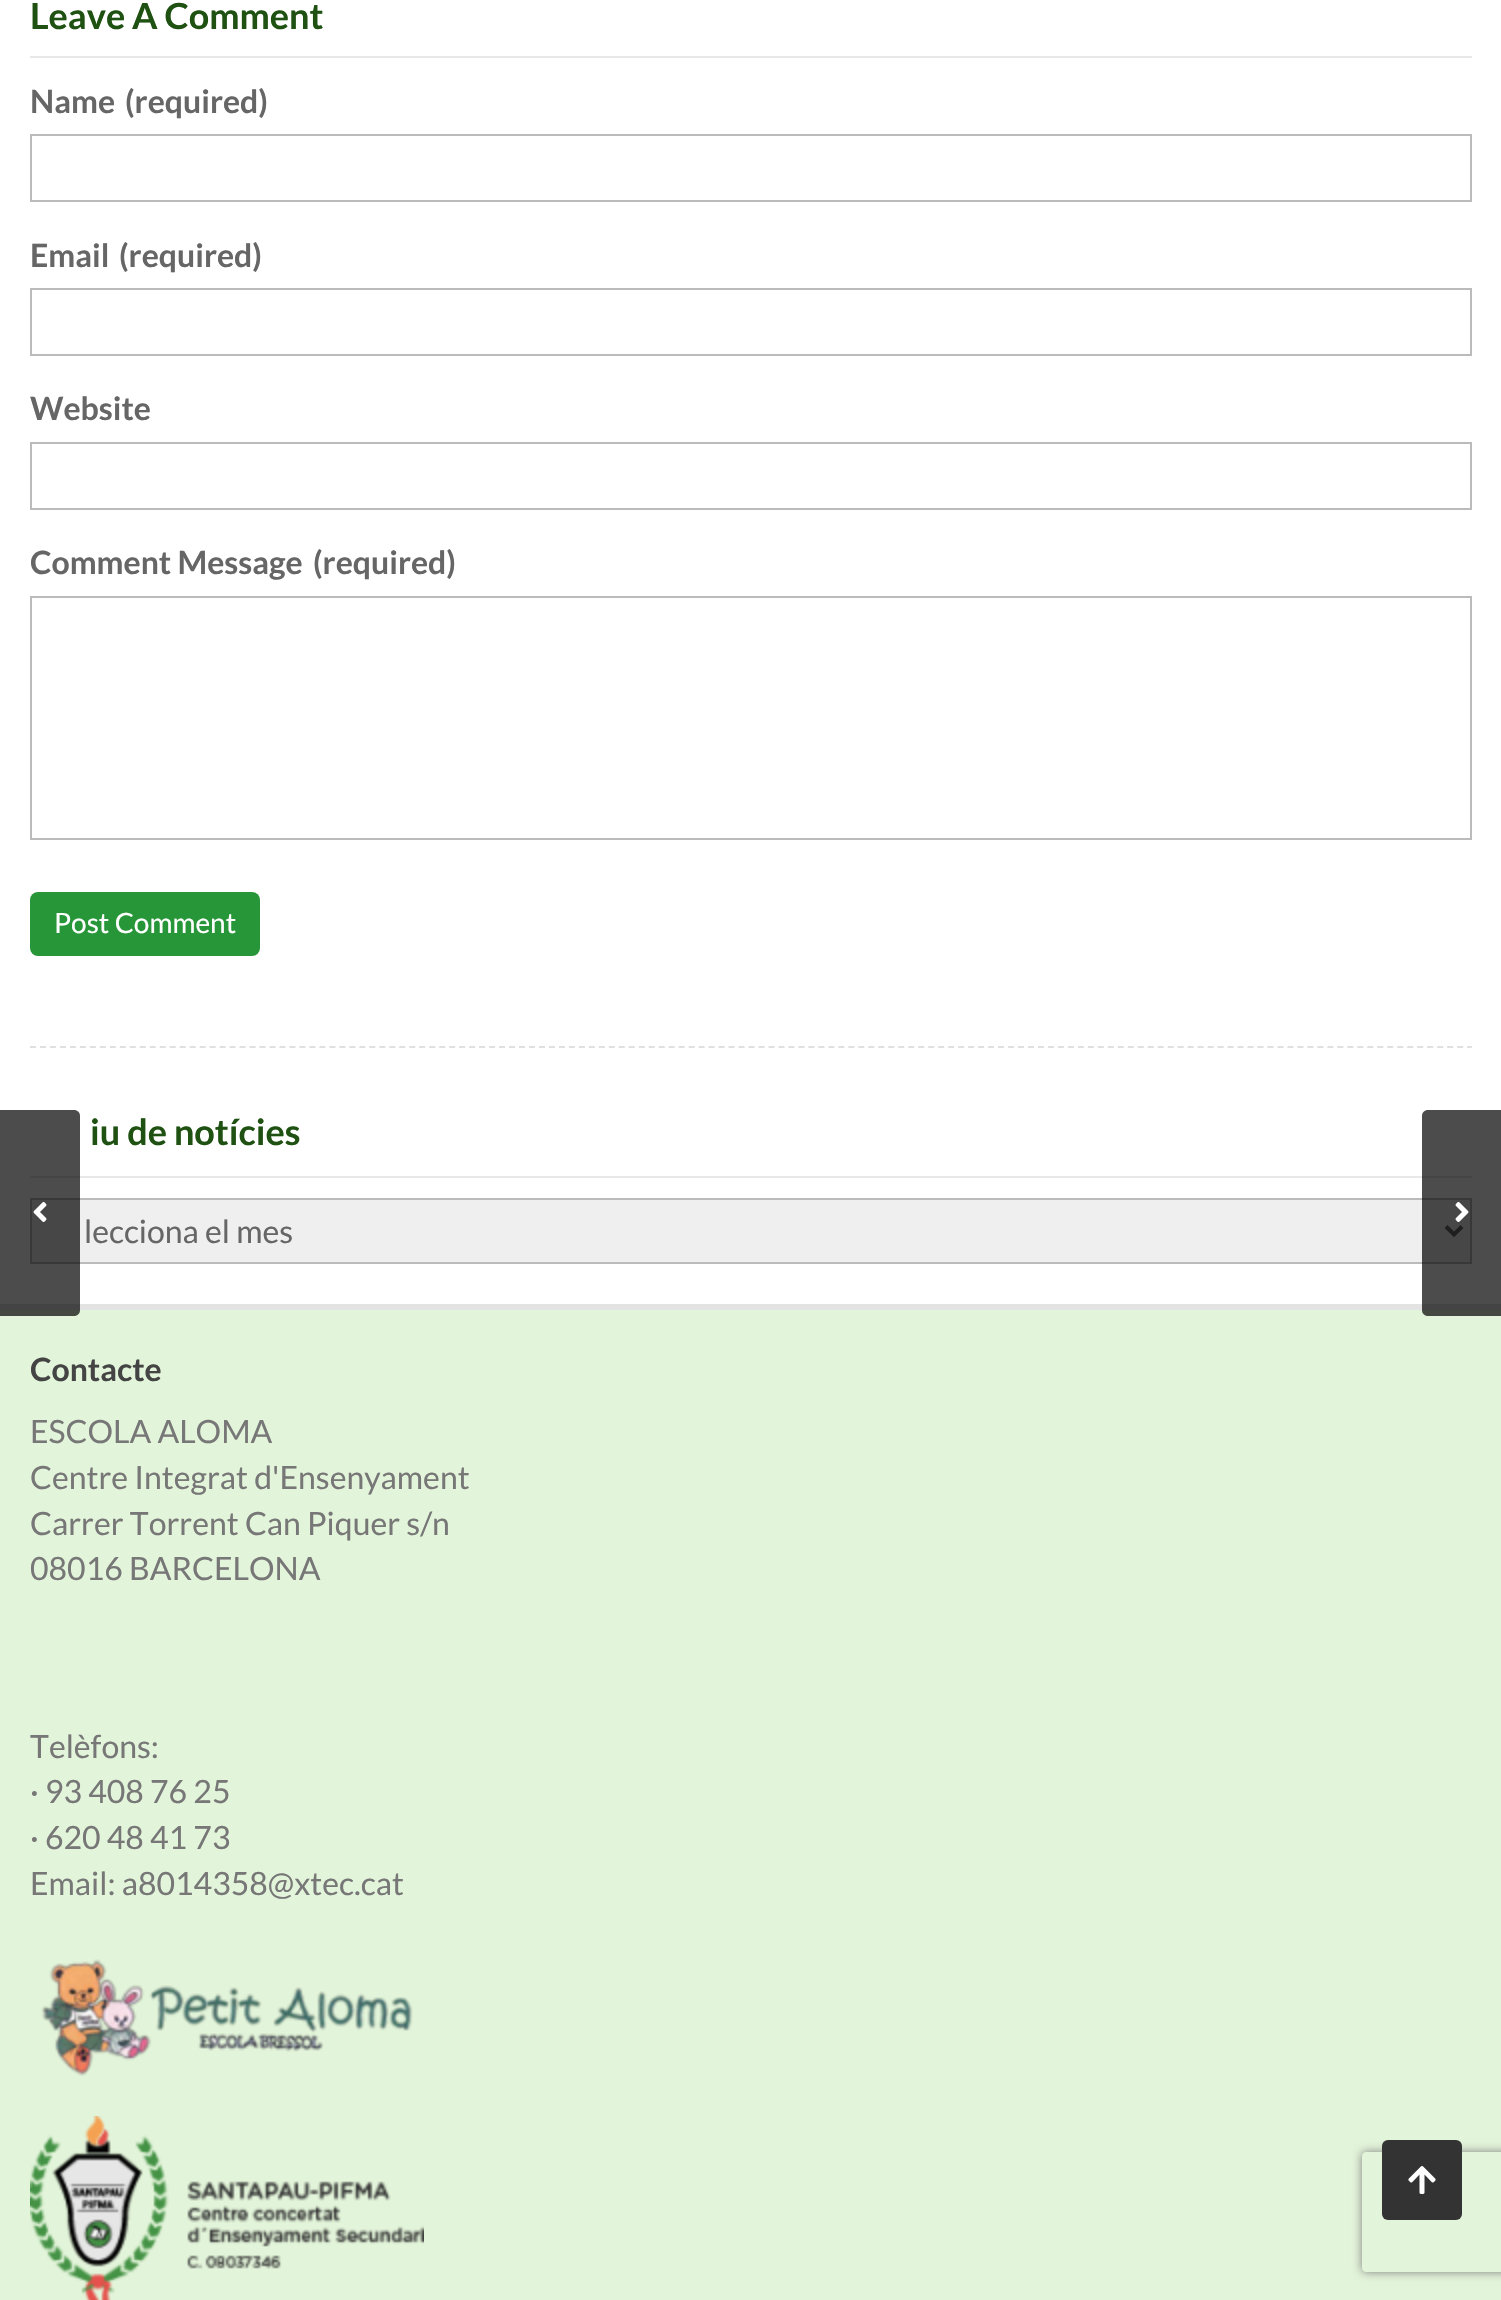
#include "include/core/SkBlurTypes.h"
#include "include/core/SkCanvas.h"
#include "include/core/SkData.h"
#include "include/core/SkFont.h"
#include "include/core/SkFontMgr.h"
#include "include/core/SkImage.h"
#include "include/core/SkMaskFilter.h"
#include "include/core/SkPaint.h"
#include "include/core/SkPathBuilder.h"
#include "include/core/SkTextBlob.h"
#include "include/effects/SkDashPathEffect.h"
#include "include/effects/SkGradientShader.h"
#include "include/utils/SkParsePath.h"

extern sk_sp<SkFontMgr> fontMgr;

static SkFont font(const char* family, int weight, float size, bool italic = false) {
    SkFontStyle style(weight, SkFontStyle::kNormal_Width,
        italic ? SkFontStyle::kItalic_Slant : SkFontStyle::kUpright_Slant);
    SkFont result(fontMgr->matchFamilyStyle(family, style), size);
    result.setSubpixel(true);
    return result;
}

static void drawLabel(SkCanvas* canvas, const char* s, float x, float y, const SkFont& font, SkColor color) {
    SkPaint ink(SkColor4f::FromColor(color));
    ink.setAntiAlias(true);
    canvas->drawString(s, x, y, font, ink);
}

static void fillRect(SkCanvas* canvas, float x, float y, float w, float h, SkColor color) {
    SkPaint ink(SkColor4f::FromColor(color));
    ink.setAntiAlias(true);
    canvas->drawRect(SkRect::MakeXYWH(x, y, w, h), ink);
}

static void fillRRect(SkCanvas* canvas, float x, float y, float w, float h, float radius, SkColor color) {
    SkPaint ink(SkColor4f::FromColor(color));
    ink.setAntiAlias(true);
    canvas->drawRoundRect(SkRect::MakeXYWH(x, y, w, h), radius, radius, ink);
}

static void drawPhoto(SkCanvas* canvas, const char* path, float x, float y, float w, float h) {
    auto image = SkImages::DeferredFromEncodedData(SkData::MakeFromFileName(path));
    canvas->drawImageRect(image, SkRect::MakeXYWH(x, y, w, h), SkSamplingOptions());
}

static SkPath parsePath(const char* data, bool evenOdd = false) {
    SkPath result = *SkParsePath::FromSVGString(data);
    if (evenOdd) result.setFillType(SkPathFillType::kEvenOdd);
    return result;
}

void draw(SkCanvas* canvas) {
    SkPaint paint;
    paint.setAntiAlias(true);
    canvas->clear(0xFFFFFFFF);
    paint.setStroke(true);
    paint.setStrokeWidth(2);
    paint.setColor(0xFFE0E0E0);
    paint.setPathEffect(SkDashPathEffect::Make({{6, 3.98f}}, 0));
    canvas->drawPath(parsePath("M30 1047H1472"), paint);
    paint.setPathEffect(nullptr);
    SkFont font1 = font("Lato", 700, 36);
    drawLabel(canvas, "Leave A Comment", 30, 29, font1, 0xFF1F5212);
    fillRect(canvas, 30, 56, 1442, 2, 0xFFE8E8E8);
    SkFont font2 = font("Lato", 700, 32);
    drawLabel(canvas, "Name", 30, 113, font2, 0xFF666666);
    drawLabel(canvas, "(required)", 125, 113, font2, 0xFF666666);
    paint.setColor(0xFFBBBBBB);
    canvas->drawRect(SkRect::MakeXYWH(31, 135, 1440, 66), paint);
    drawLabel(canvas, "Email", 30, 267, font2, 0xFF666666);
    drawLabel(canvas, "(required)", 119, 267, font2, 0xFF666666);
    canvas->drawRect(SkRect::MakeXYWH(31, 289, 1440, 66), paint);
    drawLabel(canvas, "Website", 30, 420, font2, 0xFF666666);
    canvas->drawRect(SkRect::MakeXYWH(31, 443, 1440, 66), paint);
    drawLabel(canvas, "Comment Message", 30, 574, font2, 0xFF666666);
    drawLabel(canvas, "(required)", 313, 574, font2, 0xFF666666);
    canvas->drawRect(SkRect::MakeXYWH(31, 597, 1440, 242), paint);
    fillRRect(canvas, 30, 892, 230, 64, 8, 0xFF279638);
    SkFont font3 = font("Lato", 400, 28);
    drawLabel(canvas, "Post Comment", 54, 933, font3, 0xFFFFFFFF);
    fillRect(canvas, 30, 1176, 1442, 2, 0xFFE8E8E8);
    paint.setStroke(false);
    paint.setColor(0xFFEFEFEF);
    canvas->drawRect(SkRect::MakeXYWH(31, 1199, 1440, 64), paint);
    paint.setStroke(true);
    paint.setColor(0xFFBBBBBB);
    canvas->drawRect(SkRect::MakeXYWH(31, 1199, 1440, 64), paint);
    fillRect(canvas, 0, 1310, 1501, 990, 0xFFE2F4D9);
    fillRect(canvas, 0, 1304, 1501, 6, 0xFFE3E3E3);
    paint.setStroke(false);
    paint.setColor(0xB3000000);
    canvas->drawPath(parsePath("M0 1110H74C77.5 1110 80 1112.5 80 1116V1310C80 1313.5 77.5 1316 74 1316H0Z"), paint);
    drawPhoto(canvas, "assets/img1.png", 33, 1202, 14, 20);
    paint.setStroke(true);
    paint.setStrokeWidth(4);
    paint.setColor(0xFF666666);
    canvas->drawPath(parsePath("M1446 1226.5L1454 1234.5L1462 1226.5"), paint);
    paint.setStroke(false);
    paint.setColor(0xB3000000);
    canvas->drawPath(parsePath("M1428 1110H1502V1316H1428C1424.5 1316 1422 1313.5 1422 1310V1116C1422 1112.5 1424.5 1110 1428 1110Z"), paint);
    drawPhoto(canvas, "assets/img2.png", 1455, 1202, 14, 20);
    drawLabel(canvas, "iu de notícies", 90, 1145, font1, 0xFF1F5212);
    SkFont font4 = font("Lato", 400, 32);
    drawLabel(canvas, "lecciona el mes", 84, 1243, font4, 0xFF666666);
    drawLabel(canvas, "Contacte", 30, 1381, font2, 0xFF444444);
    drawLabel(canvas, "ESCOLA ALOMA", 30, 1443, font4, 0xFF777777);
    drawLabel(canvas, "Centre Integrat d'Ensenyament", 30, 1489, font4, 0xFF777777);
    drawLabel(canvas, "Carrer Torrent Can Piquer s/n", 30, 1535, font4, 0xFF777777);
    drawLabel(canvas, "08016 BARCELONA", 30, 1580, font4, 0xFF777777);
    drawLabel(canvas, "Telèfons:", 30, 1758, font4, 0xFF777777);
    drawLabel(canvas, "· 93 408 76 25", 30, 1803, font4, 0xFF777777);
    drawLabel(canvas, "· 620 48 41 73", 30, 1849, font4, 0xFF777777);
    drawLabel(canvas, "Email: a8014358@xtec.cat", 30, 1895, font4, 0xFF777777);
    drawPhoto(canvas, "assets/img3.png", 41, 1959, 372, 117);
    drawPhoto(canvas, "assets/img4.png", 30, 2116, 394, 184);
    canvas->save();
    canvas->clipPath(parsePath("M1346 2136H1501V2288H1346ZM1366 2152H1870C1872 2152 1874 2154 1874 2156V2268C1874 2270 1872 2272 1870 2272H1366C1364 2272 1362 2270 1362 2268V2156C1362 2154 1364 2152 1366 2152Z", true), true);
    paint.setColor(0xFF808080);
    paint.setMaskFilter(SkMaskFilter::MakeBlur(kNormal_SkBlurStyle, 5));
    canvas->drawRoundRect(SkRect::MakeXYWH(1362, 2152, 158, 120), 4, 4, paint);
    paint.setMaskFilter(nullptr);
    canvas->restore();
    fillRRect(canvas, 1382, 2140, 80, 80, 6, 0xFF333333);
    drawPhoto(canvas, "assets/img5.png", 1408, 2166, 28, 28);
}
